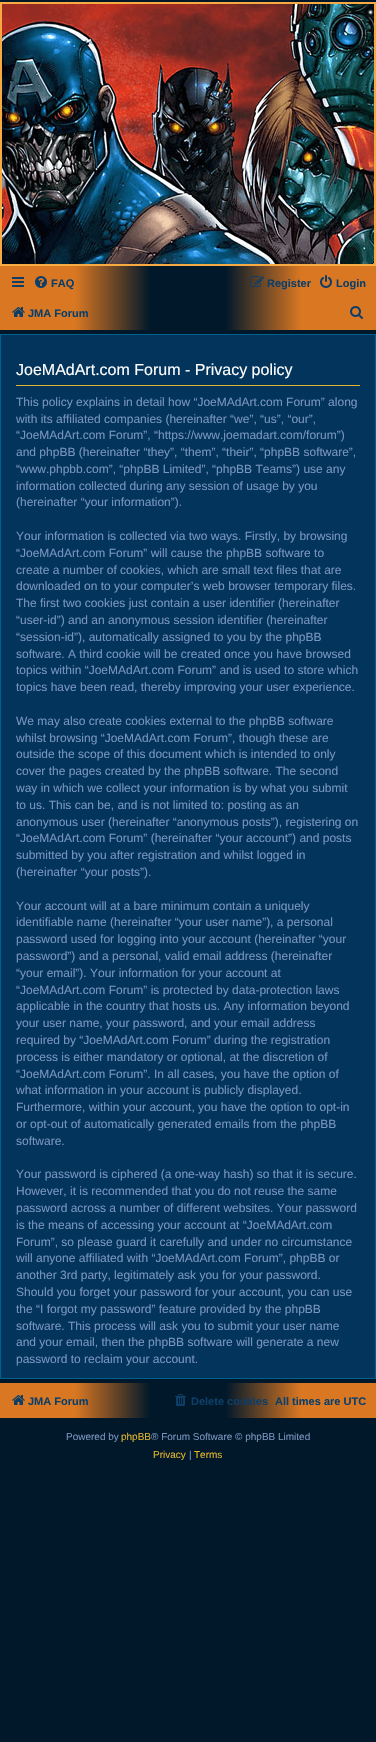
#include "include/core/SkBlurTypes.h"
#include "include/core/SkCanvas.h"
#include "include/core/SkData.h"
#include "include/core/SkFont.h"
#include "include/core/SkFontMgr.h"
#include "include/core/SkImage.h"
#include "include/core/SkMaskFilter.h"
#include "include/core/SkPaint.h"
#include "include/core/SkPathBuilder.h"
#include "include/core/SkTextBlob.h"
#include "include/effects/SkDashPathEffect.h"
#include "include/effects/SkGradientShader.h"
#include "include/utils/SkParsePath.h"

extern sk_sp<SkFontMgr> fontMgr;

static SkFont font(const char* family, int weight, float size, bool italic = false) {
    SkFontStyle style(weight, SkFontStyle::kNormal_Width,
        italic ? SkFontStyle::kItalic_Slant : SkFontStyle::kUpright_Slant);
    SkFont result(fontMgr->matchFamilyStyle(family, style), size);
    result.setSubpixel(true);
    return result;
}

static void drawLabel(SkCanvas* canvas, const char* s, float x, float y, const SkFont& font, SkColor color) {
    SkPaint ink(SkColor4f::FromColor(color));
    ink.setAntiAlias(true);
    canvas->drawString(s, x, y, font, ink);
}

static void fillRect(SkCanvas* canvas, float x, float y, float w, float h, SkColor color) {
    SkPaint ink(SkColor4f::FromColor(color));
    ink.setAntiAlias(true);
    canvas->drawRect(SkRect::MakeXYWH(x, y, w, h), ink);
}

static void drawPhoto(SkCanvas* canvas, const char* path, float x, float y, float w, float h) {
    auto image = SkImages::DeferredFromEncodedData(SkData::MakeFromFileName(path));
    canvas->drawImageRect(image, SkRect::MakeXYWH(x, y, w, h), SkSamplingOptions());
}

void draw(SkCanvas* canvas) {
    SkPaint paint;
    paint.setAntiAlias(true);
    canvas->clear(0xFF01182A);
    drawPhoto(canvas, "assets/img1.png", 2, 4, 372, 260);
    paint.setStroke(true);
    paint.setStrokeWidth(2);
    paint.setColor(0xFFF7AA41);
    canvas->drawRect(SkRect::MakeXYWH(1, 3, 374, 262), paint);
    paint.setStroke(false);
    {
        const SkColor colors[] = {0xFFD97722, 0xFFD97722, 0xFF01182A, 0xFF01182A, 0xFFD97722, 0xFFD97722};
        const float stops[] = {0, 0.2f, 0.4f, 0.6f, 0.8f, 1};
        const SkPoint ends[] = {{0, 298}, {376, 298}};
        paint.setShader(SkGradientShader::MakeLinear(ends, colors, stops, 6, SkTileMode::kClamp));
        paint.setAlpha(255);
    }
    canvas->drawRect(SkRect::MakeXYWH(0, 266, 376, 64), paint);
    drawPhoto(canvas, "assets/img2.png", 12, 277, 12, 10);
    drawPhoto(canvas, "assets/img3.png", 35, 276, 12, 12);
    SkFont font1 = font("Liberation Sans", 700, 11);
    drawLabel(canvas, "FAQ", 51, 287, font1, 0xFF0C3E68);
    drawPhoto(canvas, "assets/img4.png", 250, 276, 14, 11);
    drawLabel(canvas, "Register", 267, 287, font1, 0xFF0C3E68);
    drawPhoto(canvas, "assets/img5.png", 320, 275, 12, 13);
    drawLabel(canvas, "Login", 336, 287, font1, 0xFF0C3E68);
    drawPhoto(canvas, "assets/img6.png", 12, 307, 13, 10);
    drawLabel(canvas, "JMA Forum", 28, 317, font1, 0xFF0C3E68);
    drawPhoto(canvas, "assets/img7.png", 350, 306, 13, 13);
    paint.setShader(nullptr);
    paint.setColor(0xFF02345C);
    canvas->drawRect(SkRect::MakeXYWH(0.5f, 334.5f, 375, 1044), paint);
    paint.setStroke(true);
    paint.setStrokeWidth(1);
    paint.setColor(0xFF00608F);
    canvas->drawRect(SkRect::MakeXYWH(0.5f, 334.5f, 375, 1044), paint);
    fillRect(canvas, 16, 385, 344, 1, 0xFFE2B52D);
    SkFont font2 = font("Liberation Sans", 400, 16);
    drawLabel(canvas, "JoeMAdArt.com Forum - Privacy policy", 16, 375, font2, 0xFFFFFFFF);
    SkFont font3 = font("Liberation Sans", 400, 12);
    drawLabel(canvas, "This policy explains in detail how “JoeMAdArt.com Forum” along", 16, 406, font3, 0xFF7994BE);
    drawLabel(canvas, "with its affiliated companies (hereinafter “we”, “us”, “our”,", 16, 423, font3, 0xFF7994BE);
    drawLabel(canvas, "“JoeMAdArt.com Forum”, “https://www.joemadart.com/forum”)", 16, 439, font3, 0xFF7994BE);
    drawLabel(canvas, "and phpBB (hereinafter “they”, “them”, “their”, “phpBB software”,", 16, 456, font3, 0xFF7994BE);
    drawLabel(canvas, "“www.phpbb.com”, “phpBB Limited”, “phpBB Teams”) use any", 16, 473, font3, 0xFF7994BE);
    drawLabel(canvas, "information collected during any session of usage by you", 16, 490, font3, 0xFF7994BE);
    drawLabel(canvas, "(hereinafter “your information”).", 16, 506, font3, 0xFF7994BE);
    drawLabel(canvas, "Your information is collected via two ways. Firstly, by browsing", 16, 540, font3, 0xFF7994BE);
    drawLabel(canvas, "“JoeMAdArt.com Forum” will cause the phpBB software to", 16, 557, font3, 0xFF7994BE);
    drawLabel(canvas, "create a number of cookies, which are small text files that are", 16, 574, font3, 0xFF7994BE);
    drawLabel(canvas, "downloaded on to your computer’s web browser temporary files.", 16, 590, font3, 0xFF7994BE);
    drawLabel(canvas, "The first two cookies just contain a user identifier (hereinafter", 16, 607, font3, 0xFF7994BE);
    drawLabel(canvas, "“user-id”) and an anonymous session identifier (hereinafter", 16, 624, font3, 0xFF7994BE);
    drawLabel(canvas, "“session-id”), automatically assigned to you by the phpBB", 16, 641, font3, 0xFF7994BE);
    drawLabel(canvas, "software. A third cookie will be created once you have browsed", 16, 658, font3, 0xFF7994BE);
    drawLabel(canvas, "topics within “JoeMAdArt.com Forum” and is used to store which", 16, 674, font3, 0xFF7994BE);
    drawLabel(canvas, "topics have been read, thereby improving your user experience.", 16, 691, font3, 0xFF7994BE);
    drawLabel(canvas, "We may also create cookies external to the phpBB software", 16, 725, font3, 0xFF7994BE);
    drawLabel(canvas, "whilst browsing “JoeMAdArt.com Forum”, though these are", 16, 742, font3, 0xFF7994BE);
    drawLabel(canvas, "outside the scope of this document which is intended to only", 16, 758, font3, 0xFF7994BE);
    drawLabel(canvas, "cover the pages created by the phpBB software. The second", 16, 775, font3, 0xFF7994BE);
    drawLabel(canvas, "way in which we collect your information is by what you submit", 16, 792, font3, 0xFF7994BE);
    drawLabel(canvas, "to us. This can be, and is not limited to: posting as an", 16, 809, font3, 0xFF7994BE);
    drawLabel(canvas, "anonymous user (hereinafter “anonymous posts”), registering on", 16, 826, font3, 0xFF7994BE);
    drawLabel(canvas, "“JoeMAdArt.com Forum” (hereinafter “your account”) and posts", 16, 842, font3, 0xFF7994BE);
    drawLabel(canvas, "submitted by you after registration and whilst logged in", 16, 859, font3, 0xFF7994BE);
    drawLabel(canvas, "(hereinafter “your posts”).", 16, 876, font3, 0xFF7994BE);
    drawLabel(canvas, "Your account will at a bare minimum contain a uniquely", 16, 910, font3, 0xFF7994BE);
    drawLabel(canvas, "identifiable name (hereinafter “your user name”), a personal", 16, 926, font3, 0xFF7994BE);
    drawLabel(canvas, "password used for logging into your account (hereinafter “your", 16, 943, font3, 0xFF7994BE);
    drawLabel(canvas, "password”) and a personal, valid email address (hereinafter", 16, 960, font3, 0xFF7994BE);
    drawLabel(canvas, "“your email”). Your information for your account at", 16, 977, font3, 0xFF7994BE);
    drawLabel(canvas, "“JoeMAdArt.com Forum” is protected by data-protection laws", 16, 994, font3, 0xFF7994BE);
    drawLabel(canvas, "applicable in the country that hosts us. Any information beyond", 16, 1010, font3, 0xFF7994BE);
    drawLabel(canvas, "your user name, your password, and your email address", 16, 1027, font3, 0xFF7994BE);
    drawLabel(canvas, "required by “JoeMAdArt.com Forum” during the registration", 16, 1044, font3, 0xFF7994BE);
    drawLabel(canvas, "process is either mandatory or optional, at the discretion of", 16, 1061, font3, 0xFF7994BE);
    drawLabel(canvas, "“JoeMAdArt.com Forum”. In all cases, you have the option of", 16, 1078, font3, 0xFF7994BE);
    drawLabel(canvas, "what information in your account is publicly displayed.", 16, 1094, font3, 0xFF7994BE);
    drawLabel(canvas, "Furthermore, within your account, you have the option to opt-in", 16, 1111, font3, 0xFF7994BE);
    drawLabel(canvas, "or opt-out of automatically generated emails from the phpBB", 16, 1128, font3, 0xFF7994BE);
    drawLabel(canvas, "software.", 16, 1145, font3, 0xFF7994BE);
    drawLabel(canvas, "Your password is ciphered (a one-way hash) so that it is secure.", 16, 1178, font3, 0xFF7994BE);
    drawLabel(canvas, "However, it is recommended that you do not reuse the same", 16, 1195, font3, 0xFF7994BE);
    drawLabel(canvas, "password across a number of different websites. Your password", 16, 1212, font3, 0xFF7994BE);
    drawLabel(canvas, "is the means of accessing your account at “JoeMAdArt.com", 16, 1229, font3, 0xFF7994BE);
    drawLabel(canvas, "Forum”, so please guard it carefully and under no circumstance", 16, 1246, font3, 0xFF7994BE);
    drawLabel(canvas, "will anyone affiliated with “JoeMAdArt.com Forum”, phpBB or", 16, 1262, font3, 0xFF7994BE);
    drawLabel(canvas, "another 3rd party, legitimately ask you for your password.", 16, 1279, font3, 0xFF7994BE);
    drawLabel(canvas, "Should you forget your password for your account, you can use", 16, 1296, font3, 0xFF7994BE);
    drawLabel(canvas, "the “I forgot my password” feature provided by the phpBB", 16, 1313, font3, 0xFF7994BE);
    drawLabel(canvas, "software. This process will ask you to submit your user name", 16, 1330, font3, 0xFF7994BE);
    drawLabel(canvas, "and your email, then the phpBB software will generate a new", 16, 1346, font3, 0xFF7994BE);
    drawLabel(canvas, "password to reclaim your account.", 16, 1363, font3, 0xFF7994BE);
    paint.setStroke(false);
    {
        const SkColor colors[] = {0xFFD97722, 0xFFD97722, 0xFF01182A, 0xFF01182A, 0xFFD97722, 0xFFD97722};
        const float stops[] = {0, 0.2f, 0.4f, 0.6f, 0.8f, 1};
        const SkPoint ends[] = {{0, 1401}, {376, 1401}};
        paint.setShader(SkGradientShader::MakeLinear(ends, colors, stops, 6, SkTileMode::kClamp));
        paint.setAlpha(255);
    }
    canvas->drawRect(SkRect::MakeXYWH(0, 1383, 376, 35), paint);
    drawPhoto(canvas, "assets/img6.png", 12, 1395, 13, 10);
    drawLabel(canvas, "JMA Forum", 28, 1405, font1, 0xFF0C3E68);
    drawPhoto(canvas, "assets/img8.png", 175, 1394, 11, 12);
    drawLabel(canvas, "Delete cookies", 191, 1405, font1, 0xFF0C3E68);
    drawLabel(canvas, "All times are UTC", 275, 1405, font1, 0xFF0C3E68);
    SkFont font4 = font("Liberation Sans", 400, 10);
    drawLabel(canvas, "Powered by", 66, 1440, font4, 0xFF7994BE);
    drawLabel(canvas, "phpBB", 121, 1440, font4, 0xFFE2B52D);
    drawLabel(canvas, "® Forum Software © phpBB Limited", 151, 1440, font4, 0xFF7994BE);
    drawLabel(canvas, "Privacy", 153, 1458, font4, 0xFFE2B52D);
    drawLabel(canvas, "|", 189, 1458, font4, 0xFF7994BE);
    drawLabel(canvas, "Terms", 194, 1458, font4, 0xFFE2B52D);
}
